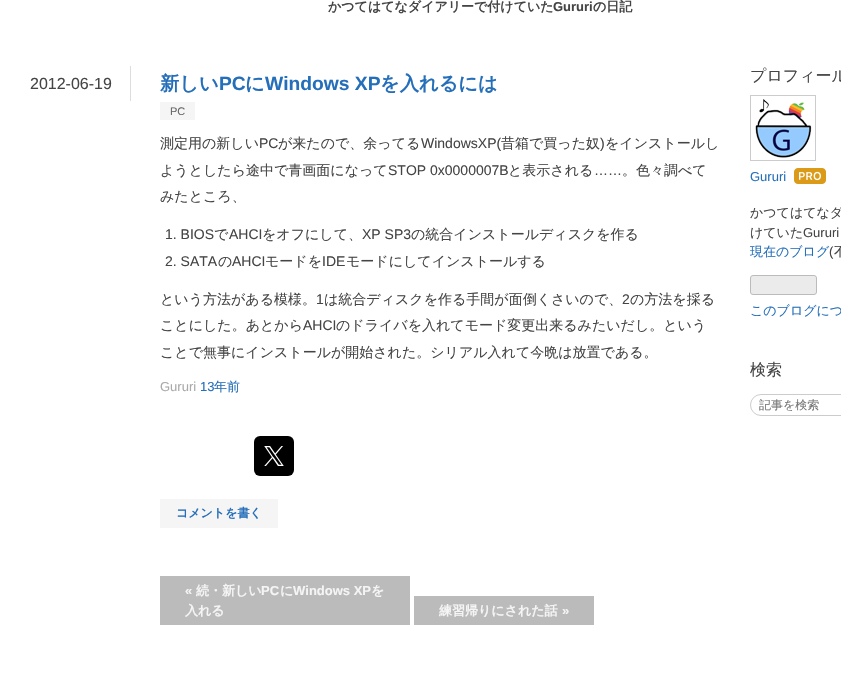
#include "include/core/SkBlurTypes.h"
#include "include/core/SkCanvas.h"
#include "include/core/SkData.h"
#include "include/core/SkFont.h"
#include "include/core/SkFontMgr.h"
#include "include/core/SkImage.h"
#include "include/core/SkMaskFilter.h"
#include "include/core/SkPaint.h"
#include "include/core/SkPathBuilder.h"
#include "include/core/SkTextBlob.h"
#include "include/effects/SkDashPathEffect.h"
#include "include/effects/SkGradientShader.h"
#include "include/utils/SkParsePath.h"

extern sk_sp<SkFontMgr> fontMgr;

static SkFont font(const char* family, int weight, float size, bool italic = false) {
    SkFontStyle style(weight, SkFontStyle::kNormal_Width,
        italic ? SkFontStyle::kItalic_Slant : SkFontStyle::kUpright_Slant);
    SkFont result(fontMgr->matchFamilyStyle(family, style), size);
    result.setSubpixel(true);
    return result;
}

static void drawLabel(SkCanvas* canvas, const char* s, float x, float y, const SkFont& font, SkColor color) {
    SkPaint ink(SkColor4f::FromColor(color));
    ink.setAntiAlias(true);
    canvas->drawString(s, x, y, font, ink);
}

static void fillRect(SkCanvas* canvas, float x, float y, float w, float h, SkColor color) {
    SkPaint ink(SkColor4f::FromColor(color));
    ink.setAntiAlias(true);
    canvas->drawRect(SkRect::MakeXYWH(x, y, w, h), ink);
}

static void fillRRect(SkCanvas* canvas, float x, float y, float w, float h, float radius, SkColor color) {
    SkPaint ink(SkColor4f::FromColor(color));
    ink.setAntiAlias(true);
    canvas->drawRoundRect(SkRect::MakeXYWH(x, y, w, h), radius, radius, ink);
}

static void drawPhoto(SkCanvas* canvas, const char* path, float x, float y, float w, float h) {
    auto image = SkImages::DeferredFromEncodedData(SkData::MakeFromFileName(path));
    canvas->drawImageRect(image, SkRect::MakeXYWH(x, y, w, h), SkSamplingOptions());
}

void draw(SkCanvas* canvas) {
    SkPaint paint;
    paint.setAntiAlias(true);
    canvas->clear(0xFFFFFFFF);
    SkFont font1 = font("WenQuanYi Zen Hei", 700, 13);
    drawLabel(canvas, "かつてはてなダイアリーで付けていた", 328, 11, font1, 0xFF454545);
    SkFont font2 = font("Liberation Sans", 700, 13);
    drawLabel(canvas, "Gururi", 553, 11, font2, 0xFF454545);
    drawLabel(canvas, "の日記", 593, 11, font1, 0xFF454545);
    fillRect(canvas, 130, 66, 1, 35, 0xFFDDDDDD);
    SkFont font3 = font("Liberation Sans", 400, 16);
    drawLabel(canvas, "2012-06-19", 30, 89, font3, 0xFF454545);
    SkFont font4 = font("WenQuanYi Zen Hei", 700, 19.25f);
    drawLabel(canvas, "新しい", 160, 90, font4, 0xFF256FBA);
    SkFont font5 = font("Liberation Sans", 700, 19.25f);
    drawLabel(canvas, "PC", 219, 90, font5, 0xFF256FBA);
    drawLabel(canvas, "に", 245, 90, font4, 0xFF256FBA);
    drawLabel(canvas, "Windows XP", 265, 90, font5, 0xFF256FBA);
    drawLabel(canvas, "を入れるには", 380, 90, font4, 0xFF256FBA);
    fillRect(canvas, 160, 102, 35, 18, 0xFFF5F5F5);
    SkFont font6 = font("Liberation Sans", 400, 11);
    drawLabel(canvas, "PC", 170, 115, font6, 0xFF666666);
    SkFont font7 = font("WenQuanYi Zen Hei", 500, 14);
    drawLabel(canvas, "測定用の新しい", 160, 148, font7, 0xFF454545);
    SkFont font8 = font("Liberation Sans", 400, 14);
    drawLabel(canvas, "PC", 259, 148, font8, 0xFF454545);
    drawLabel(canvas, "が来たので、余ってる", 278, 148, font7, 0xFF454545);
    drawLabel(canvas, "WindowsXP(", 421, 148, font8, 0xFF454545);
    drawLabel(canvas, "昔箱で買った奴", 501, 148, font7, 0xFF454545);
    drawLabel(canvas, ")", 600, 148, font8, 0xFF454545);
    drawLabel(canvas, "をインストールし", 605, 148, font7, 0xFF454545);
    drawLabel(canvas, "ようとしたら途中で青画面になって", 160, 175, font7, 0xFF454545);
    drawLabel(canvas, "STOP 0x0000007B", 388, 175, font8, 0xFF454545);
    drawLabel(canvas, "と表示される", 508, 175, font7, 0xFF454545);
    drawLabel(canvas, "……", 594, 175, font8, 0xFF454545);
    drawLabel(canvas, "。色々調べて", 622, 175, font7, 0xFF454545);
    drawLabel(canvas, "みたところ、", 160, 201, font7, 0xFF454545);
    drawLabel(canvas, "1. BIOS", 165, 239, font8, 0xFF454545);
    drawLabel(canvas, "で", 214, 239, font7, 0xFF454545);
    drawLabel(canvas, "AHCI", 229, 239, font8, 0xFF454545);
    drawLabel(canvas, "をオフにして、", 262, 239, font7, 0xFF454545);
    drawLabel(canvas, "XP SP3", 362, 239, font8, 0xFF454545);
    drawLabel(canvas, "の統合インストールディスクを作る", 411, 239, font7, 0xFF454545);
    drawLabel(canvas, "2. SATA", 165, 266, font8, 0xFF454545);
    drawLabel(canvas, "の", 218, 266, font7, 0xFF454545);
    drawLabel(canvas, "AHCI", 232, 266, font8, 0xFF454545);
    drawLabel(canvas, "モードを", 265, 266, font7, 0xFF454545);
    drawLabel(canvas, "IDE", 322, 266, font8, 0xFF454545);
    drawLabel(canvas, "モードにしてインストールする", 346, 266, font7, 0xFF454545);
    drawLabel(canvas, "という方法がある模様。", 160, 304, font7, 0xFF454545);
    drawLabel(canvas, "1", 316, 304, font8, 0xFF454545);
    drawLabel(canvas, "は統合ディスクを作る手間が面倒くさいので、", 324, 304, font7, 0xFF454545);
    drawLabel(canvas, "2", 622, 304, font8, 0xFF454545);
    drawLabel(canvas, "の方法を採る", 630, 304, font7, 0xFF454545);
    drawLabel(canvas, "ことにした。あとから", 160, 330, font7, 0xFF454545);
    drawLabel(canvas, "AHCI", 303, 330, font8, 0xFF454545);
    drawLabel(canvas, "のドライバを入れてモード変更出来るみたいだし。という", 336, 330, font7, 0xFF454545);
    drawLabel(canvas, "ことで無事にインストールが開始された。シリアル入れて今晩は放置である。", 160, 357, font7, 0xFF454545);
    SkFont font9 = font("Liberation Sans", 400, 13);
    drawLabel(canvas, "Gururi", 160, 391, font9, 0xFFAAAAAA);
    drawLabel(canvas, "13", 200, 391, font9, 0xFF256FBA);
    SkFont font10 = font("WenQuanYi Zen Hei", 500, 13);
    drawLabel(canvas, "年前", 214, 391, font10, 0xFF256FBA);
    fillRRect(canvas, 254, 436, 40, 40, 6, 0xFF000000);
    drawPhoto(canvas, "assets/img1.png", 264, 446, 20, 20);
    fillRect(canvas, 160, 499, 118, 29, 0xFFF5F5F5);
    SkFont font11 = font("WenQuanYi Zen Hei", 700, 12);
    drawLabel(canvas, "コメントを書く", 176, 517, font11, 0xFF256FBA);
    fillRect(canvas, 160, 576, 250, 49, 0xFFBBBBBB);
    drawLabel(canvas, "«", 185, 595, font2, 0xFFF5F5F5);
    drawLabel(canvas, "続・新しい", 196, 595, font1, 0xFFF5F5F5);
    drawLabel(canvas, "PC", 261, 595, font2, 0xFFF5F5F5);
    drawLabel(canvas, "に", 280, 595, font1, 0xFFF5F5F5);
    drawLabel(canvas, "Windows XP", 293, 595, font2, 0xFFF5F5F5);
    drawLabel(canvas, "を", 371, 595, font1, 0xFFF5F5F5);
    drawLabel(canvas, "入れる", 185, 615, font1, 0xFFF5F5F5);
    fillRect(canvas, 414, 596, 180, 29, 0xFFBBBBBB);
    drawLabel(canvas, "練習帰りにされた話", 439, 615, font1, 0xFFF5F5F5);
    drawLabel(canvas, "»", 562, 615, font2, 0xFFF5F5F5);
    SkFont font12 = font("WenQuanYi Zen Hei", 500, 16);
    drawLabel(canvas, "プロフィール", 750, 81, font12, 0xFF454545);
    paint.setStroke(true);
    paint.setStrokeWidth(1);
    paint.setColor(0xFFCCCCCC);
    canvas->drawRect(SkRect::MakeXYWH(750.5f, 95.5f, 65, 65), paint);
    drawPhoto(canvas, "assets/img2.png", 755, 99, 57, 59);
    drawLabel(canvas, "Gururi", 750, 181, font9, 0xFF256FBA);
    drawPhoto(canvas, "assets/img3.png", 794, 168, 32, 16);
    drawLabel(canvas, "かつてはてなダ", 750, 217, font10, 0xFF454545);
    drawLabel(canvas, "けていた", 750, 237, font10, 0xFF454545);
    drawLabel(canvas, "Gururi", 803, 237, font9, 0xFF454545);
    drawLabel(canvas, "現在のブログ", 750, 256, font10, 0xFF256FBA);
    drawLabel(canvas, "(", 829, 256, font9, 0xFF454545);
    drawLabel(canvas, "不", 834, 256, font10, 0xFF454545);
    paint.setStroke(false);
    paint.setColor(0xFFEBEBEB);
    canvas->drawRoundRect(SkRect::MakeXYWH(750.5f, 275.5f, 66, 19), 2.5f, 2.5f, paint);
    paint.setStroke(true);
    paint.setColor(0xFFBBBBBB);
    canvas->drawRoundRect(SkRect::MakeXYWH(750.5f, 275.5f, 66, 19), 2.5f, 2.5f, paint);
    drawLabel(canvas, "このブログにつ", 750, 315, font10, 0xFF256FBA);
    drawLabel(canvas, "検索", 750, 375, font12, 0xFF454545);
    paint.setColor(0xFFCCCCCC);
    canvas->drawRoundRect(SkRect::MakeXYWH(750.5f, 394.5f, 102, 21), 10.5f, 10.5f, paint);
    SkFont font13 = font("WenQuanYi Zen Hei", 500, 12);
    drawLabel(canvas, "記事を検索", 759, 409, font13, 0xFF757575);
}
